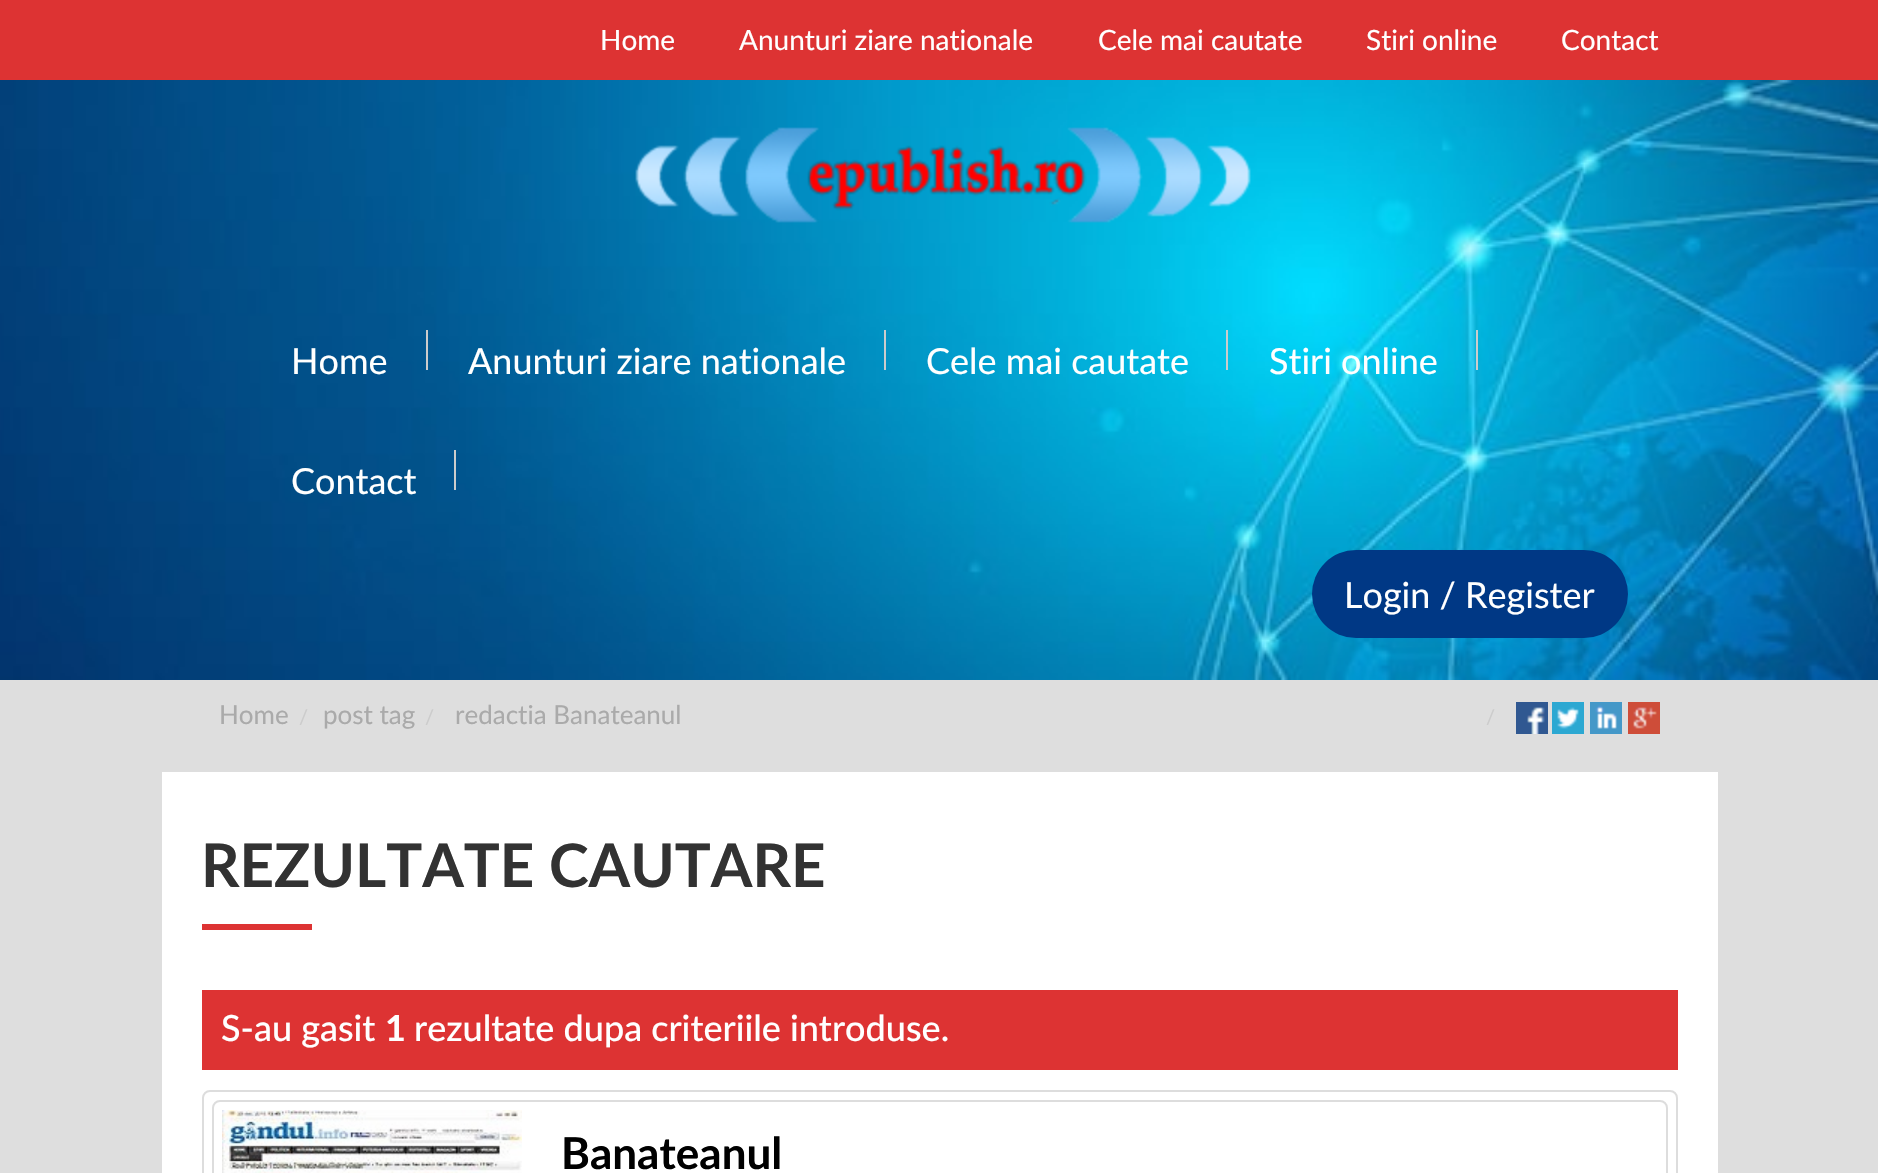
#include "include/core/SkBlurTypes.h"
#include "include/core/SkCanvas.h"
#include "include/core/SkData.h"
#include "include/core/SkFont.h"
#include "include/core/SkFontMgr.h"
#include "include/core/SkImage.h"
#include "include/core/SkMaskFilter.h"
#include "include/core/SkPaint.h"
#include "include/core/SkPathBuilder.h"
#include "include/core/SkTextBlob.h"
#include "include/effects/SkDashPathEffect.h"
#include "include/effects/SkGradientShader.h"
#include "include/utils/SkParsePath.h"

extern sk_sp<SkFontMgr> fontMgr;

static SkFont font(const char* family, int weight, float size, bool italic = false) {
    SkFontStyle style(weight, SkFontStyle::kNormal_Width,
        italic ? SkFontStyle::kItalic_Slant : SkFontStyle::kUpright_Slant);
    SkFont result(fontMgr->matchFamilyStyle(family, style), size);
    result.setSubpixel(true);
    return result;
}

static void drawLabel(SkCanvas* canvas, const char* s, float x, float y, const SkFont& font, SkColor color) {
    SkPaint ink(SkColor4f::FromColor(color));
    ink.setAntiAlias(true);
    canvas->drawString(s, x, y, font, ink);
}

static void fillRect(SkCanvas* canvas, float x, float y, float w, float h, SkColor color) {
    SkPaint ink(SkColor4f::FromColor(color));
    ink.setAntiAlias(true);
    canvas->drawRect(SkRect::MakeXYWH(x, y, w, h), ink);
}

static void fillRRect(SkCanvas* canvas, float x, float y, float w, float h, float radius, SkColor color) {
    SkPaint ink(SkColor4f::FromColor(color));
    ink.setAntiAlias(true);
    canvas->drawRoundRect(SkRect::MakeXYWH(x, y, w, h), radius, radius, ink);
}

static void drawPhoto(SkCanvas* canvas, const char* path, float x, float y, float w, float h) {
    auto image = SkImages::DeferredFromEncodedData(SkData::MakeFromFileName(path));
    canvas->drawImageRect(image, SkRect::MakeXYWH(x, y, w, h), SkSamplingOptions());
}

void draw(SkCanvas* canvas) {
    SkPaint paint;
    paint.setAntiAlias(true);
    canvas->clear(0xFFDD3333);
    SkFont font1 = font("Lato", 400, 28);
    drawLabel(canvas, "Home", 600, 50, font1, 0xFFFFFFFF);
    drawLabel(canvas, "Anunturi ziare nationale", 739, 50, font1, 0xFFFFFFFF);
    drawLabel(canvas, "Cele mai cautate", 1098, 50, font1, 0xFFFFFFFF);
    drawLabel(canvas, "Stiri online", 1366, 50, font1, 0xFFFFFFFF);
    drawLabel(canvas, "Contact", 1561, 50, font1, 0xFFFFFFFF);
    drawPhoto(canvas, "assets/img1.png", 0, 80, 1878, 600);
    drawPhoto(canvas, "assets/img2.png", 635, 127, 616, 96);
    SkFont font2 = font("Lato", 400, 36);
    drawLabel(canvas, "Home", 291, 374, font2, 0xFFFFFFFF);
    fillRect(canvas, 426, 330, 2, 40, 0xFFCCCCCC);
    drawLabel(canvas, "Anunturi ziare nationale", 468, 374, font2, 0xFFFFFFFF);
    fillRect(canvas, 884, 330, 2, 40, 0xFFCCCCCC);
    drawLabel(canvas, "Cele mai cautate", 926, 374, font2, 0xFFFFFFFF);
    fillRect(canvas, 1226, 330, 2, 40, 0xFFCCCCCC);
    drawLabel(canvas, "Stiri online", 1269, 374, font2, 0xFFFFFFFF);
    fillRect(canvas, 1476, 330, 2, 40, 0xFFCCCCCC);
    drawLabel(canvas, "Contact", 291, 494, font2, 0xFFFFFFFF);
    fillRect(canvas, 454, 450, 2, 40, 0xFFCCCCCC);
    fillRRect(canvas, 1312, 550, 316, 88, 44, 0xFF003885);
    drawLabel(canvas, "Login / Register", 1344, 608, font2, 0xFFFFFFFF);
    fillRect(canvas, 0, 680, 1878, 493, 0xFFDEDEDE);
    SkFont font3 = font("Lato", 400, 26);
    drawLabel(canvas, "Home", 219, 724, font3, 0xFFAAAAAA);
    SkFont font4 = font("Lato", 400, 20);
    drawLabel(canvas, "/", 299, 724, font4, 0xFFCCCCCC);
    drawLabel(canvas, "post tag", 323, 724, font3, 0xFFAAAAAA);
    drawLabel(canvas, "/", 425, 724, font4, 0xFFCCCCCC);
    drawLabel(canvas, "redactia Banateanul", 455, 724, font3, 0xFFAAAAAA);
    drawLabel(canvas, "/", 1486, 724, font4, 0xFFCCCCCC);
    drawPhoto(canvas, "assets/img3.png", 1516, 702, 32, 32);
    drawPhoto(canvas, "assets/img4.png", 1552, 702, 32, 32);
    drawPhoto(canvas, "assets/img5.png", 1590, 702, 32, 32);
    drawPhoto(canvas, "assets/img6.png", 1628, 702, 32, 32);
    fillRect(canvas, 162, 772, 1556, 401, 0xFFFFFFFF);
    SkFont font5 = font("Lato", 700, 60);
    drawLabel(canvas, "REZULTATE CAUTARE", 201, 887, font5, 0xFF323232);
    fillRect(canvas, 202, 924, 110, 6, 0xFFDD3333);
    fillRect(canvas, 202, 990, 1476, 80, 0xFFDD3333);
    SkFont font6 = font("Lato", 500, 36);
    drawLabel(canvas, "S-au gasit", 221, 1041, font6, 0xFFFFFFFF);
    SkFont font7 = font("Lato", 700, 36);
    drawLabel(canvas, "1", 385, 1041, font7, 0xFFFFFFFF);
    drawLabel(canvas, "rezultate dupa criteriile introduse.", 414, 1041, font6, 0xFFFFFFFF);
    paint.setStroke(true);
    paint.setStrokeWidth(2);
    paint.setColor(0xFFDDDDDD);
    canvas->drawRoundRect(SkRect::MakeXYWH(203, 1091, 1474, 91), 7, 7, paint);
    canvas->drawRoundRect(SkRect::MakeXYWH(213, 1101, 1454, 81), 7, 7, paint);
    drawPhoto(canvas, "assets/img7.png", 222, 1110, 300, 63);
    SkFont font8 = font("Lato", 700, 44);
    drawLabel(canvas, "Banateanul", 561, 1169, font8, 0xFF000000);
}
